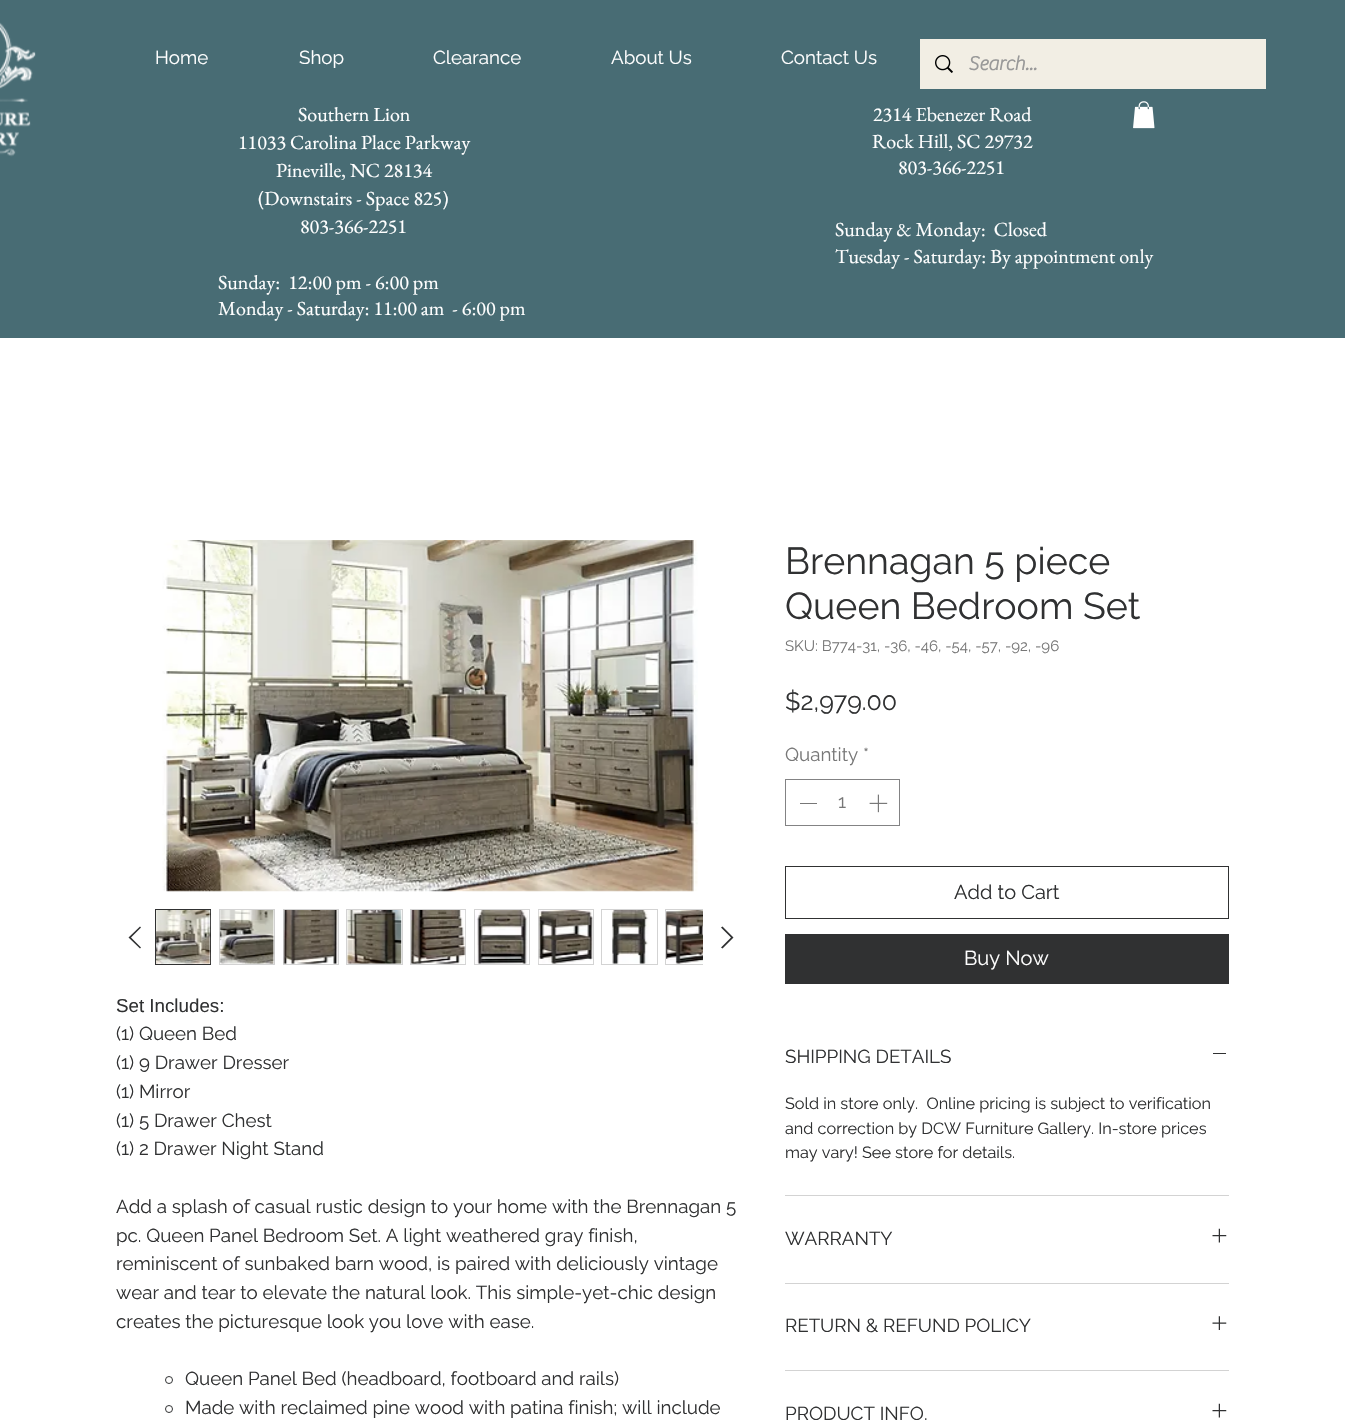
#include "include/core/SkBlurTypes.h"
#include "include/core/SkCanvas.h"
#include "include/core/SkData.h"
#include "include/core/SkFont.h"
#include "include/core/SkFontMgr.h"
#include "include/core/SkImage.h"
#include "include/core/SkMaskFilter.h"
#include "include/core/SkPaint.h"
#include "include/core/SkPathBuilder.h"
#include "include/core/SkTextBlob.h"
#include "include/effects/SkDashPathEffect.h"
#include "include/effects/SkGradientShader.h"
#include "include/utils/SkParsePath.h"

extern sk_sp<SkFontMgr> fontMgr;

static SkFont font(const char* family, int weight, float size, bool italic = false) {
    SkFontStyle style(weight, SkFontStyle::kNormal_Width,
        italic ? SkFontStyle::kItalic_Slant : SkFontStyle::kUpright_Slant);
    SkFont result(fontMgr->matchFamilyStyle(family, style), size);
    result.setSubpixel(true);
    return result;
}

static void drawLabel(SkCanvas* canvas, const char* s, float x, float y, const SkFont& font, SkColor color) {
    SkPaint ink(SkColor4f::FromColor(color));
    ink.setAntiAlias(true);
    canvas->drawString(s, x, y, font, ink);
}

static void fillRect(SkCanvas* canvas, float x, float y, float w, float h, SkColor color) {
    SkPaint ink(SkColor4f::FromColor(color));
    ink.setAntiAlias(true);
    canvas->drawRect(SkRect::MakeXYWH(x, y, w, h), ink);
}

static void drawPhoto(SkCanvas* canvas, const char* path, float x, float y, float w, float h) {
    auto image = SkImages::DeferredFromEncodedData(SkData::MakeFromFileName(path));
    canvas->drawImageRect(image, SkRect::MakeXYWH(x, y, w, h), SkSamplingOptions());
}

static SkPath parsePath(const char* data, bool evenOdd = false) {
    SkPath result = *SkParsePath::FromSVGString(data);
    if (evenOdd) result.setFillType(SkPathFillType::kEvenOdd);
    return result;
}

void draw(SkCanvas* canvas) {
    SkPaint paint;
    paint.setAntiAlias(true);
    canvas->clear(0xFFFFFFFF);
    fillRect(canvas, 0, 0, 1345, 338, 0xFF486C74);
    drawPhoto(canvas, "assets/img1.png", 0, 22, 36, 135);
    SkFont font1 = font("Raleway", 400, 18.75f);
    drawLabel(canvas, "Home", 155, 64, font1, 0xFFFFFFFF);
    drawLabel(canvas, "Shop", 299, 64, font1, 0xFFFFFFFF);
    drawLabel(canvas, "Clearance", 433, 64, font1, 0xFFFFFFFF);
    drawLabel(canvas, "About Us", 611, 64, font1, 0xFFFFFFFF);
    drawLabel(canvas, "Contact Us", 781, 64, font1, 0xFFFFFFFF);
    fillRect(canvas, 920, 39, 346, 50, 0xFFF2EEE4);
    drawPhoto(canvas, "assets/img2.png", 935, 55, 18, 18);
    SkFont font2 = font("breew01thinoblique", 700, 20);
    drawLabel(canvas, "Search...", 968, 70, font2, 0xFF999999);
    SkFont font3 = font("EB Garamond", 400, 20);
    drawLabel(canvas, "Southern Lion", 298, 121, font3, 0xFFFFFFFF);
    drawLabel(canvas, "11033 Carolina Place Parkway", 238, 149, font3, 0xFFFFFFFF);
    drawLabel(canvas, "Pineville, NC 28134", 276, 177, font3, 0xFFFFFFFF);
    drawLabel(canvas, "(Downstairs - Space 825)", 258, 205, font3, 0xFFFFFFFF);
    drawLabel(canvas, "803-366-2251", 300, 233, font3, 0xFFFFFFFF);
    drawLabel(canvas, "2314 Ebenezer Road", 873, 121, font3, 0xFFFFFFFF);
    drawLabel(canvas, "Rock Hill, SC 29732", 872, 148, font3, 0xFFFFFFFF);
    drawLabel(canvas, "803-366-2251", 898, 174, font3, 0xFFFFFFFF);
    drawPhoto(canvas, "assets/img3.png", 1133, 101, 22, 28);
    drawLabel(canvas, "Sunday & Monday:  Closed", 835, 236, font3, 0xFFFFFFFF);
    drawLabel(canvas, "Tuesday - Saturday: By appointment only", 835, 263, font3, 0xFFFFFFFF);
    drawLabel(canvas, "Sunday:  12:00 pm - 6:00 pm", 218, 289, font3, 0xFFFFFFFF);
    drawLabel(canvas, "Monday - Saturday: 11:00 am  - 6:00 pm", 218, 315, font3, 0xFFFFFFFF);
    drawPhoto(canvas, "assets/img4.png", 162, 540, 536, 352);
    paint.setColor(0xFF303132);
    canvas->drawPath(parsePath("M140 926.5L141 927.5L131 937.5L141 947.5L140 948.5L128.5 937.5Z", true), paint);
    paint.setStroke(true);
    paint.setStrokeWidth(1);
    canvas->drawRect(SkRect::MakeXYWH(155.5f, 909.5f, 55, 55), paint);
    drawPhoto(canvas, "assets/img5.png", 156, 910, 55, 54);
    paint.setColor(0xFFD3D3D3);
    canvas->drawRect(SkRect::MakeXYWH(219.5f, 909.5f, 55, 55), paint);
    drawPhoto(canvas, "assets/img6.png", 219, 910, 56, 54);
    canvas->drawRect(SkRect::MakeXYWH(283.5f, 909.5f, 55, 55), paint);
    drawPhoto(canvas, "assets/img7.png", 283, 910, 55, 54);
    canvas->drawRect(SkRect::MakeXYWH(346.5f, 909.5f, 56, 55), paint);
    drawPhoto(canvas, "assets/img8.png", 347, 910, 55, 54);
    canvas->drawRect(SkRect::MakeXYWH(410.5f, 909.5f, 55, 55), paint);
    drawPhoto(canvas, "assets/img9.png", 411, 910, 55, 54);
    canvas->drawRect(SkRect::MakeXYWH(474.5f, 909.5f, 55, 55), paint);
    drawPhoto(canvas, "assets/img10.png", 475, 910, 53, 54);
    canvas->drawRect(SkRect::MakeXYWH(538.5f, 909.5f, 55, 55), paint);
    drawPhoto(canvas, "assets/img11.png", 538, 910, 55, 54);
    canvas->drawRect(SkRect::MakeXYWH(601.5f, 909.5f, 56, 55), paint);
    drawPhoto(canvas, "assets/img12.png", 612, 910, 38, 54);
    canvas->save();
    canvas->clipRect(SkRect::MakeXYWH(150, 904, 553, 66));
    canvas->drawRect(SkRect::MakeXYWH(665.5f, 909.5f, 55, 55), paint);
    canvas->restore();
    drawPhoto(canvas, "assets/img13.png", 666, 910, 37, 54);
    paint.setStroke(false);
    paint.setColor(0xFF303132);
    canvas->drawPath(parsePath("M722.5 926.5L733.5 937.5L722.5 948.5L721 947.5L731 937.5L721 927.5Z", true), paint);
    SkFont font4 = font("Liberation Sans", 400, 18.75f);
    drawLabel(canvas, "Set Includes:", 116, 1012, font4, 0xFF303132);
    drawLabel(canvas, "(1) Queen Bed", 116, 1040, font1, 0xFF303132);
    drawLabel(canvas, "(1) 9 Drawer Dresser", 116, 1069, font1, 0xFF303132);
    drawLabel(canvas, "(1) Mirror", 116, 1098, font1, 0xFF303132);
    drawLabel(canvas, "(1) 5 Drawer Chest", 116, 1127, font1, 0xFF303132);
    drawLabel(canvas, "(1) 2 Drawer Night Stand", 116, 1155, font1, 0xFF303132);
    drawLabel(canvas, "Add a splash of casual rustic design to your home with the Brennagan 5", 116, 1213, font1, 0xFF303132);
    drawLabel(canvas, "pc. Queen Panel Bedroom Set. A light weathered gray finish,", 116, 1242, font1, 0xFF303132);
    drawLabel(canvas, "reminiscent of sunbaked barn wood, is paired with deliciously vintage", 116, 1270, font1, 0xFF303132);
    drawLabel(canvas, "wear and tear to elevate the natural look. This simple-yet-chic design", 116, 1299, font1, 0xFF303132);
    drawLabel(canvas, "creates the picturesque look you love with ease.", 116, 1328, font1, 0xFF303132);
    paint.setStroke(true);
    canvas->drawCircle(169, 1380, 3.5f, paint);
    drawLabel(canvas, "Queen Panel Bed (headboard, footboard and rails)", 185, 1385, font1, 0xFF303132);
    canvas->drawCircle(169, 1409, 3.5f, paint);
    drawLabel(canvas, "Made with reclaimed pine wood with patina finish; will include", 185, 1414, font1, 0xFF303132);
    SkFont font5 = font("Raleway", 400, 37.5f);
    drawLabel(canvas, "Brennagan 5 piece", 785, 574, font5, 0xFF303132);
    drawLabel(canvas, "Queen Bedroom Set", 785, 619, font5, 0xFF303132);
    SkFont font6 = font("Raleway", 400, 15);
    drawLabel(canvas, "SKU: B774-31, -36, -46, -54, -57, -92, -96", 785, 651, font6, 0xFF777777);
    SkFont font7 = font("Raleway", 400, 25);
    drawLabel(canvas, "$2,979.00", 785, 710, font7, 0xFF303132);
    drawLabel(canvas, "Quantity *", 785, 761, font1, 0xFF777777);
    paint.setColor(0xFF838384);
    canvas->drawRect(SkRect::MakeXYWH(785.5f, 779.5f, 114, 46), paint);
    fillRect(canvas, 800, 803, 17, 1, 0xFF777777);
    drawLabel(canvas, "1", 838, 808, font1, 0xFF777777);
    drawPhoto(canvas, "assets/img14.png", 869, 794, 19, 19);
    paint.setColor(0xFF303132);
    canvas->drawRect(SkRect::MakeXYWH(785.5f, 866.5f, 443, 52), paint);
    SkFont font8 = font("Raleway", 400, 20);
    drawLabel(canvas, "Add to Cart", 954, 899, font8, 0xFF303132);
    fillRect(canvas, 785, 934, 444, 50, 0xFF303132);
    drawLabel(canvas, "Buy Now", 964, 965, font8, 0xFFFFFFFF);
    fillRect(canvas, 785, 1195, 444, 1, 0xFFD3D3D3);
    drawLabel(canvas, "SHIPPING DETAILS", 785, 1063, font1, 0xFF303132);
    fillRect(canvas, 1213, 1053, 13, 1, 0xFF303132);
    SkFont font9 = font("Raleway", 400, 16.25f);
    drawLabel(canvas, "Sold in store only.  Online pricing is subject to verification", 785, 1109, font9, 0xFF303132);
    drawLabel(canvas, "and correction by DCW Furniture Gallery. In-store prices", 785, 1134, font9, 0xFF303132);
    drawLabel(canvas, "may vary! See store for details.", 785, 1158, font9, 0xFF303132);
    fillRect(canvas, 785, 1283, 444, 1, 0xFFD3D3D3);
    drawLabel(canvas, "WARRANTY", 785, 1245, font1, 0xFF303132);
    drawPhoto(canvas, "assets/img15.png", 1212, 1228, 15, 15);
    fillRect(canvas, 785, 1370, 444, 1, 0xFFD3D3D3);
    drawLabel(canvas, "RETURN & REFUND POLICY", 785, 1332, font1, 0xFF303132);
    drawPhoto(canvas, "assets/img16.png", 1212, 1316, 15, 14);
    drawLabel(canvas, "PRODUCT INFO.", 785, 1420, font1, 0xFF303132);
    drawPhoto(canvas, "assets/img15.png", 1212, 1403, 15, 15);
}
